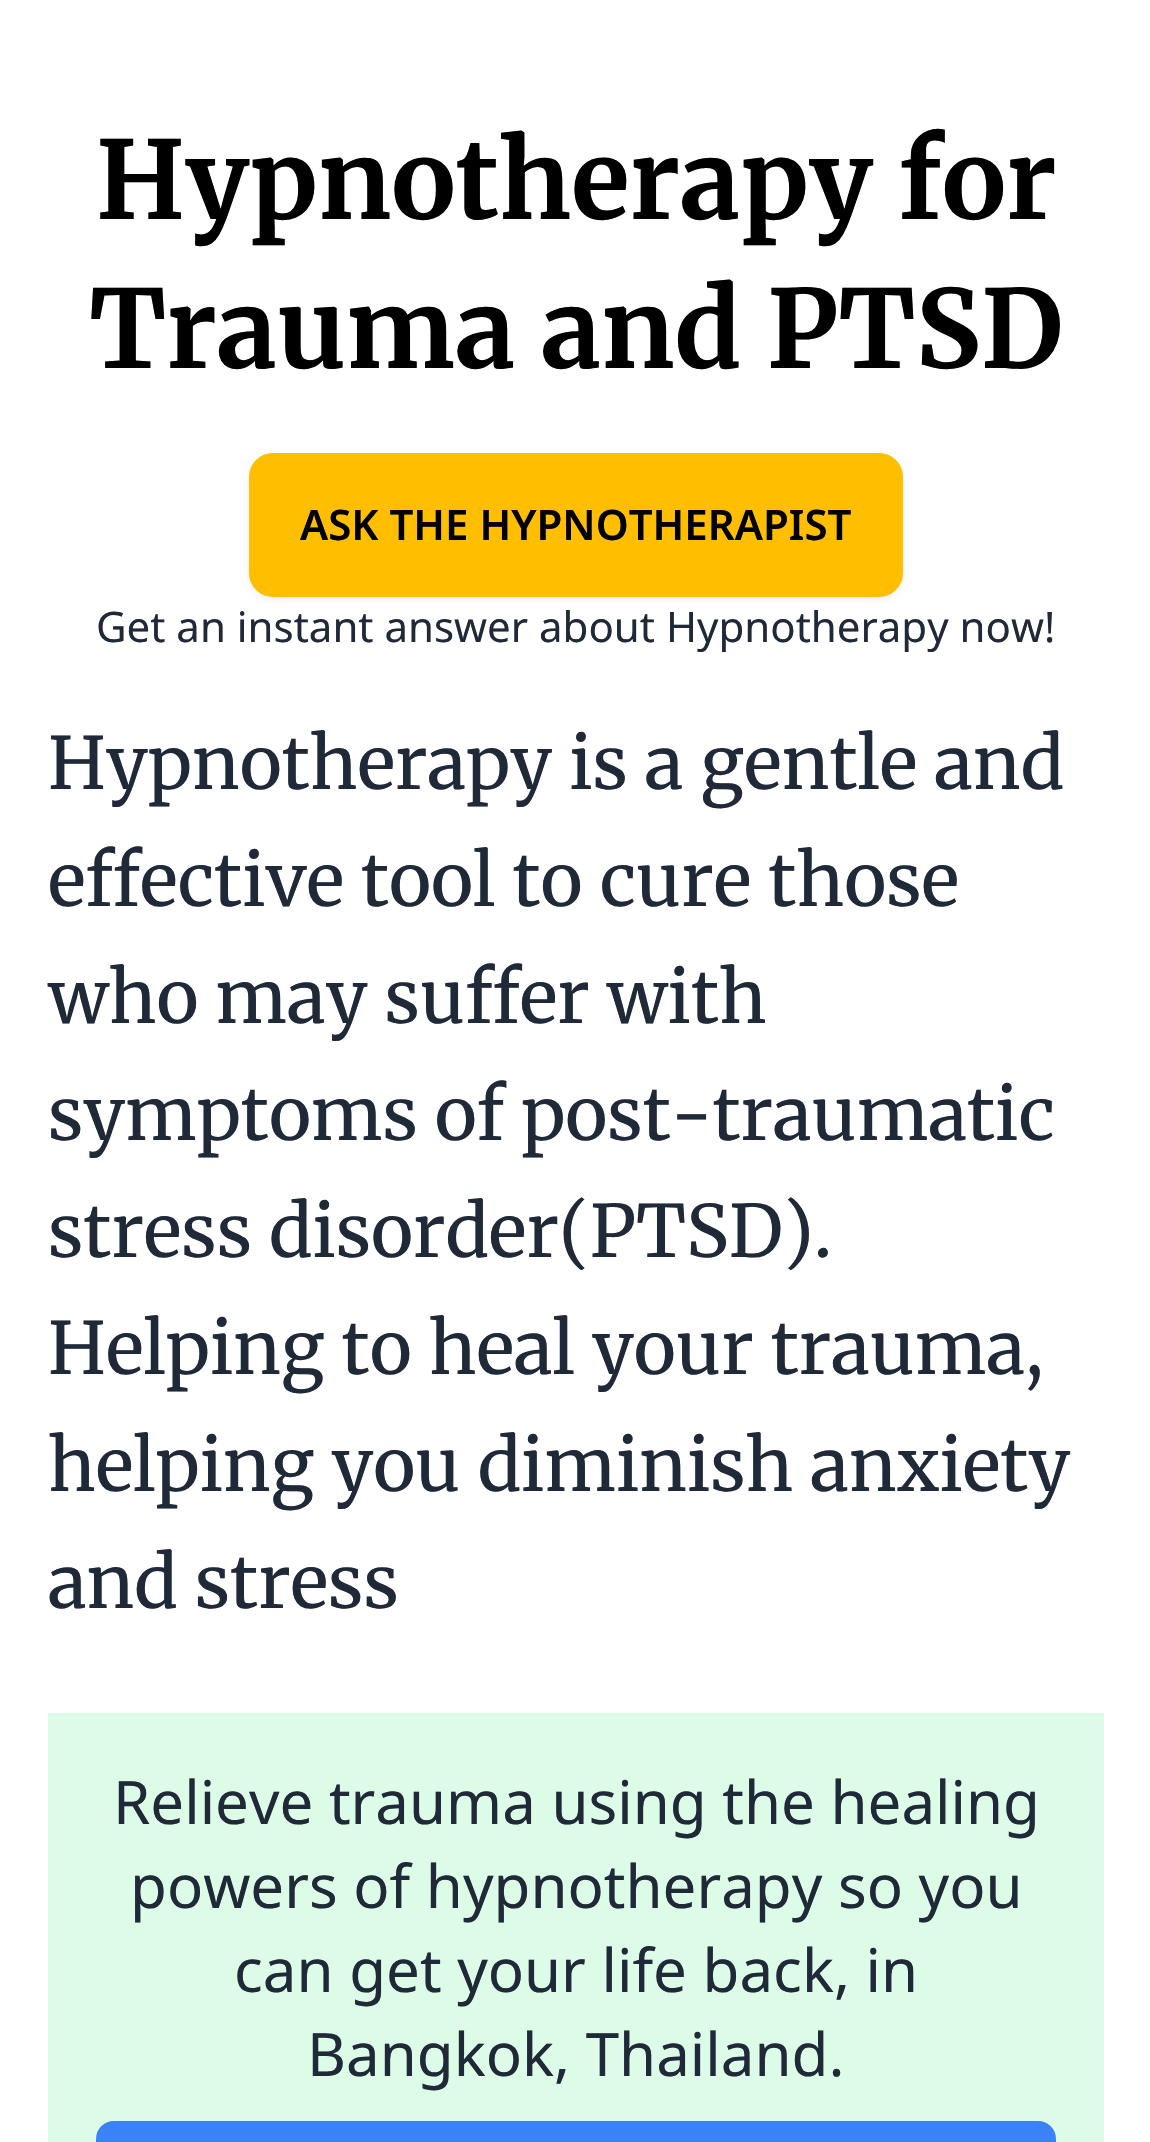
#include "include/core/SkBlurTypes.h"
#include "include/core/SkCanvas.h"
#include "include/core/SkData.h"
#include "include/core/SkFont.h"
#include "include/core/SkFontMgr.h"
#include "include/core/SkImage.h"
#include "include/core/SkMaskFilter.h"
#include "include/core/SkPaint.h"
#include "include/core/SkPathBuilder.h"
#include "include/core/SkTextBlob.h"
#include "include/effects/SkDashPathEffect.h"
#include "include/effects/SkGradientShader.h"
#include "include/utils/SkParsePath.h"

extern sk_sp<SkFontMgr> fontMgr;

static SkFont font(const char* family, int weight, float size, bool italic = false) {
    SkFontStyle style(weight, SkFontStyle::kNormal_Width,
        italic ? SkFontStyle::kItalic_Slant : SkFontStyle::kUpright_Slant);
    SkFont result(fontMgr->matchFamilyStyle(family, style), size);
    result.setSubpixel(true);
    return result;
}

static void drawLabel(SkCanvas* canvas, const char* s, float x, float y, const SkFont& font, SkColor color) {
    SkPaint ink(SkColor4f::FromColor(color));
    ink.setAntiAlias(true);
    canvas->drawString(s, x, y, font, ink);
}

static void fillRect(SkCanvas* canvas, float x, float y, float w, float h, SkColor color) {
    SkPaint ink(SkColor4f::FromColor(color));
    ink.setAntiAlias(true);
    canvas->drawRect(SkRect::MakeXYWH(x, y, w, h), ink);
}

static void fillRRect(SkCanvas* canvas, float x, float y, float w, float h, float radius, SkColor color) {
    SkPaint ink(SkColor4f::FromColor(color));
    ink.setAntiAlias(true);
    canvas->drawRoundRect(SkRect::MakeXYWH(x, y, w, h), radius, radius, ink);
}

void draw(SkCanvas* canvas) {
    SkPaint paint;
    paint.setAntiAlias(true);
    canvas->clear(0xFFFFFFFF);
    SkFont font1 = font("Merriweather", 700, 108);
    drawLabel(canvas, "Hypnotherapy for", 96, 219, font1, 0xFF000000);
    drawLabel(canvas, "Trauma and PTSD", 89, 368, font1, 0xFF000000);
    paint.setColor(0x0D000000);
    paint.setMaskFilter(SkMaskFilter::MakeBlur(kNormal_SkBlurStyle, 3));
    canvas->drawRoundRect(SkRect::MakeXYWH(249, 456, 654, 144), 24, 24, paint);
    paint.setMaskFilter(nullptr);
    paint.setColor(0xFFFFBE00);
    canvas->drawRoundRect(SkRect::MakeXYWH(250.5f, 454.5f, 651, 141), 22.5f, 22.5f, paint);
    paint.setStroke(true);
    paint.setStrokeWidth(3);
    canvas->drawRoundRect(SkRect::MakeXYWH(250.5f, 454.5f, 651, 141), 22.5f, 22.5f, paint);
    SkFont font2 = font("Noto Sans", 600, 42);
    drawLabel(canvas, "ASK THE HYPNOTHERAPIST", 300, 540, font2, 0xFF000000);
    SkFont font3 = font("Noto Sans", 400, 42);
    drawLabel(canvas, "Get an instant answer about Hypnotherapy now!", 96, 642, font3, 0xFF1F2937);
    SkFont font4 = font("Merriweather", 400, 72);
    drawLabel(canvas, "Hypnotherapy is a gentle and", 48, 789, font4, 0xFF1F2937);
    drawLabel(canvas, "effective tool to cure those", 48, 906, font4, 0xFF1F2937);
    drawLabel(canvas, "who may suffer with", 48, 1023, font4, 0xFF1F2937);
    drawLabel(canvas, "symptoms of post-traumatic", 48, 1140, font4, 0xFF1F2937);
    drawLabel(canvas, "stress disorder(PTSD).", 48, 1257, font4, 0xFF1F2937);
    drawLabel(canvas, "Helping to heal your trauma,", 48, 1374, font4, 0xFF1F2937);
    drawLabel(canvas, "helping you diminish anxiety", 48, 1491, font4, 0xFF1F2937);
    drawLabel(canvas, "and stress", 48, 1608, font4, 0xFF1F2937);
    fillRect(canvas, 48, 1713, 1056, 429, 0xFFDCFCE7);
    SkFont font5 = font("Noto Sans", 400, 60);
    drawLabel(canvas, "Relieve trauma using the healing", 113, 1824, font5, 0xFF1F2937);
    drawLabel(canvas, "powers of hypnotherapy so you", 130, 1908, font5, 0xFF1F2937);
    drawLabel(canvas, "can get your life back, in", 234, 1992, font5, 0xFF1F2937);
    drawLabel(canvas, "Bangkok, Thailand.", 307, 2076, font5, 0xFF1F2937);
    fillRRect(canvas, 96, 2121, 960, 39, 18, 0xFF3B82F6);
}
